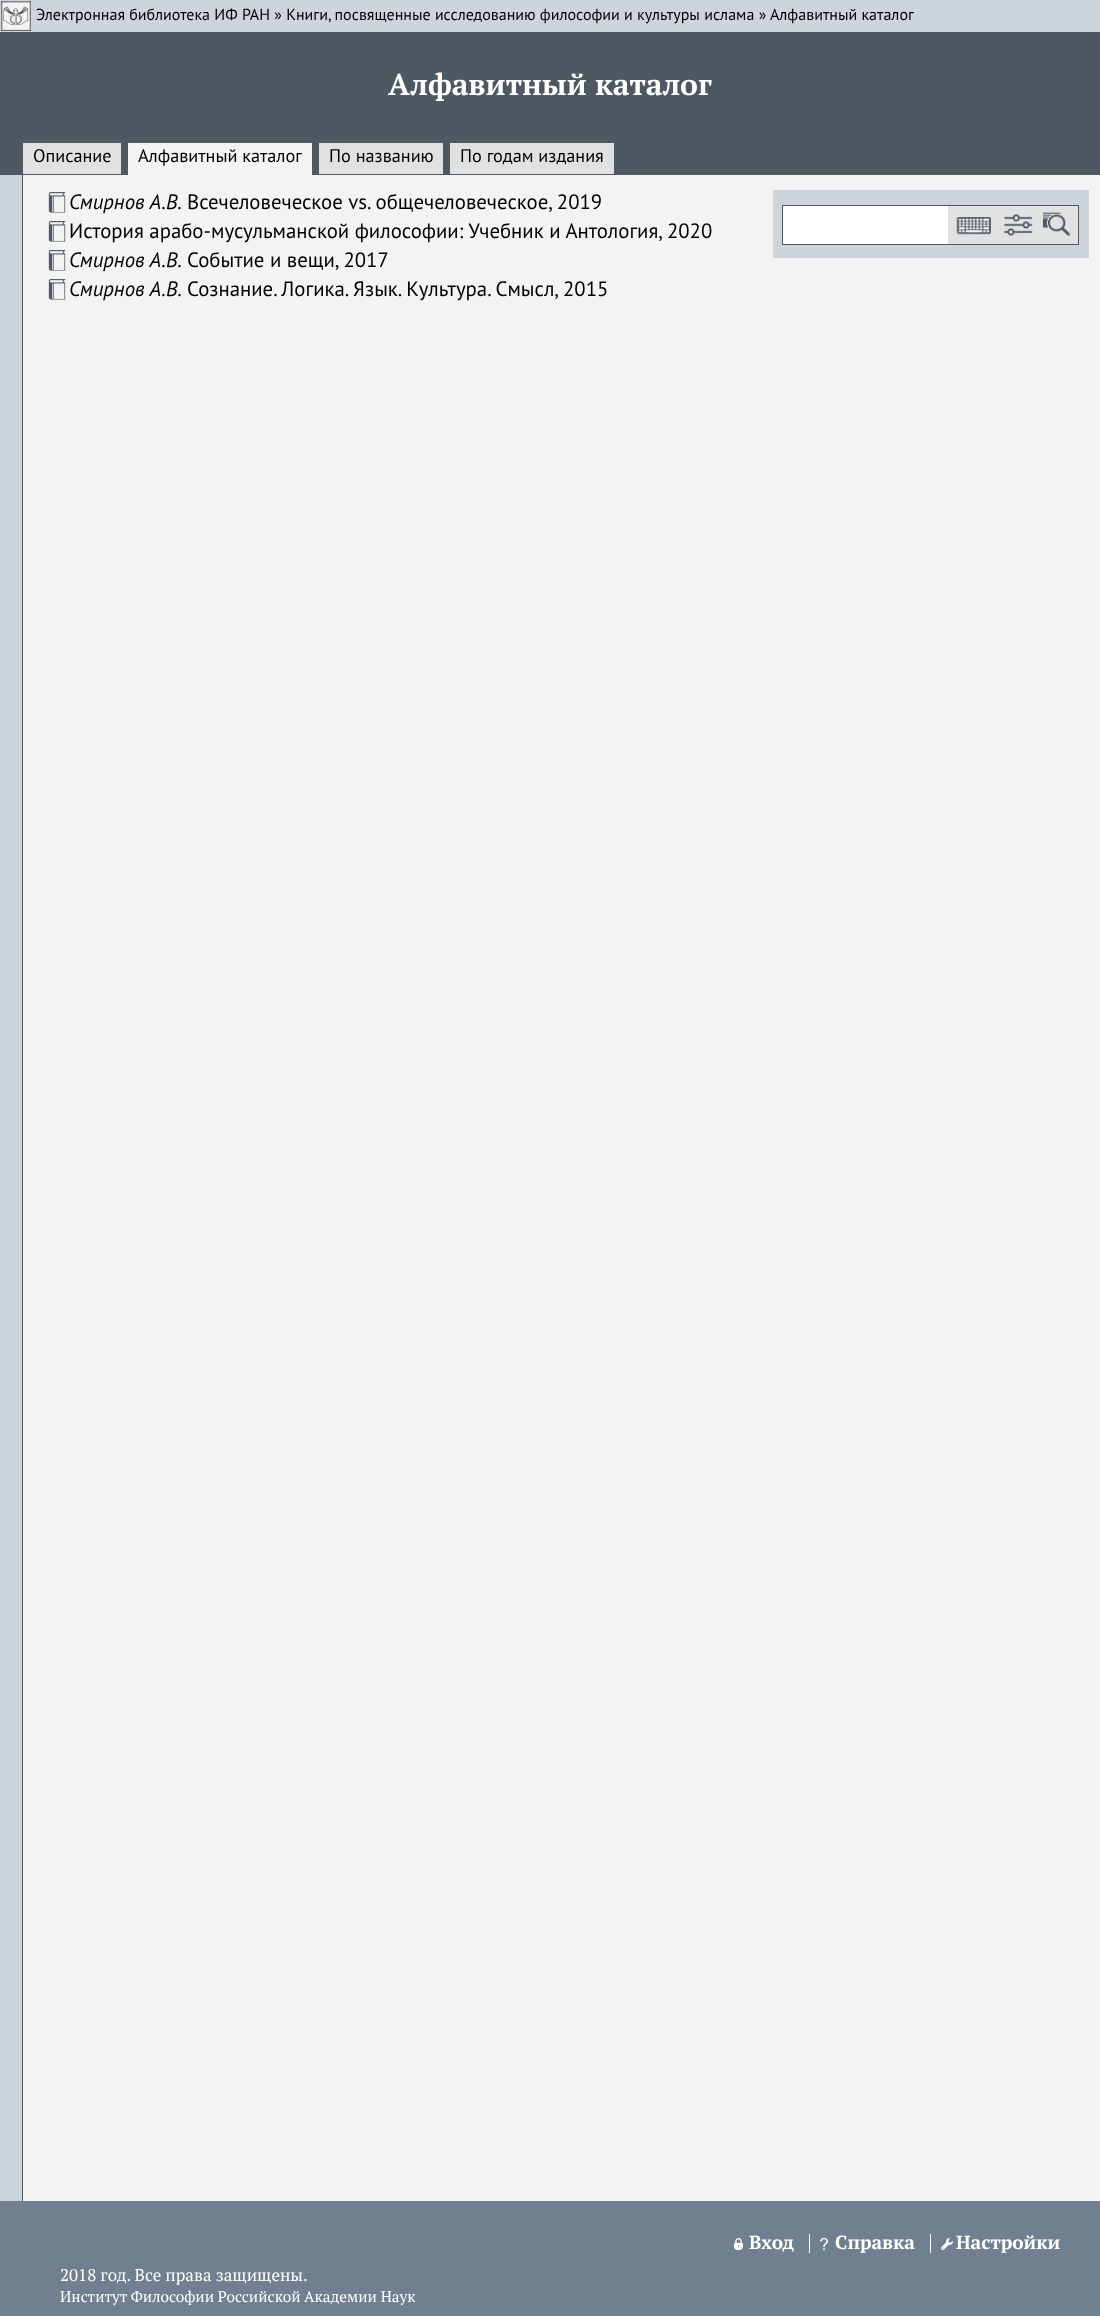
(async () => {
    const canvas = document.querySelector("canvas");
    canvas.width = 1100;
    canvas.height = 2316;
    const context = canvas.getContext("2d");
    context.miterLimit = 4;
    context.fontKerning = "normal";
    function write(s, x, y, font, color) {
        context.font = font;
        context.fillStyle = color;
        context.fillText(s, x, y);
    }
    function block(x, y, w, h, color) {
        context.fillStyle = color;
        context.fillRect(x, y, w, h);
    }
    async function photo(src, x, y, w, h) {
        const img = new Image();
        img.src = src;
        await img.decode();
        context.drawImage(img, x, y, w, h);
    }

    block(0, 0, 1100, 2316, "rgb(206, 212, 219)");
    await photo("media/1.png", 1, 1, 30, 30);
    write("Электронная библиотека ИФ РАН » Книги, посвященные исследованию философии и культуры ислама » Алфавитный каталог", 36, 20, "16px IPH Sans", "rgb(0, 0, 0)");
    block(0, 32, 1100, 143, "rgb(77, 88, 99)");
    write("Алфавитный каталог", 388, 95, "bold 30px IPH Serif", "rgb(255, 255, 255)");
    block(23, 143, 98, 31, "rgb(225, 225, 225)");
    write("Описание", 33, 162, "18.25px IPH Sans", "rgb(0, 0, 0)");
    block(128, 143, 184, 32, "rgb(243, 243, 243)");
    write("Алфавитный каталог", 138, 162, "18.25px IPH Sans", "rgb(0, 0, 0)");
    block(319, 143, 124, 31, "rgb(225, 225, 225)");
    write("По названию", 329, 162, "18.25px IPH Sans", "rgb(0, 0, 0)");
    block(450, 143, 164, 31, "rgb(225, 225, 225)");
    write("По годам издания", 460, 162, "18.25px IPH Sans", "rgb(0, 0, 0)");
    block(23, 175, 1077, 2026, "rgb(243, 243, 243)");
    block(22, 175, 1, 2026, "rgb(77, 88, 99)");
    await photo("media/2.png", 48, 192, 18, 21);
    write("Смирнов А.В.", 69, 209, "italic 20.8px IPH Sans", "rgb(0, 0, 0)");
    write("Всечеловеческое vs. общечеловеческое, 2019", 187, 209, "20.8px IPH Sans", "rgb(0, 0, 0)");
    await photo("media/2.png", 48, 221, 18, 21);
    write("История арабо-мусульманской философии: Учебник и Антология, 2020", 69, 238, "20.8px IPH Sans", "rgb(0, 0, 0)");
    await photo("media/2.png", 48, 250, 18, 21);
    write("Смирнов А.В.", 69, 267, "italic 20.8px IPH Sans", "rgb(0, 0, 0)");
    write("Событие и вещи, 2017", 187, 267, "20.8px IPH Sans", "rgb(0, 0, 0)");
    await photo("media/2.png", 48, 279, 18, 21);
    write("Смирнов А.В.", 69, 296, "italic 20.8px IPH Sans", "rgb(0, 0, 0)");
    write("Сознание. Логика. Язык. Культура. Смысл, 2015", 187, 296, "20.8px IPH Sans", "rgb(0, 0, 0)");
    block(773, 190, 316, 68, "rgb(206, 212, 219)");
    block(783, 206, 165, 38, "rgb(255, 255, 255)");
    block(782, 205, 297, 1, "rgb(77, 88, 99)");
    block(782, 244, 256, 1, "rgb(77, 88, 99)");
    block(782, 205, 1, 40, "rgb(77, 88, 99)");
    block(948, 206, 130, 38, "rgb(225, 225, 225)");
    await photo("media/3.png", 956, 217, 35, 18);
    await photo("media/4.png", 1004, 214, 29, 22);
    block(1078, 205, 1, 40, "rgb(77, 88, 99)");
    block(1038, 244, 41, 1, "rgb(77, 88, 99)");
    await photo("media/5.png", 1042, 212, 29, 25);
    block(0, 2201, 1100, 115, "rgb(112, 128, 144)");
    await photo("media/6.png", 734, 2238, 9, 12);
    write("Вход", 749, 2249, "bold 19px IPH Serif", "rgb(255, 255, 255)");
    block(809, 2234, 1, 19, "rgb(255, 255, 255)");
    await photo("media/7.png", 820, 2238, 8, 12);
    write("Справка", 835, 2249, "bold 19px IPH Serif", "rgb(255, 255, 255)");
    block(930, 2234, 1, 19, "rgb(255, 255, 255)");
    await photo("media/8.png", 941, 2238, 12, 12);
    write("Настройки", 956, 2249, "bold 19px IPH Serif", "rgb(255, 255, 255)");
    write("2018 год. Все права защищены.", 60, 2281, "17px IPH Serif", "rgb(255, 255, 255)");
    write("Институт Философии Российской Академии Наук", 60, 2302, "15.3px IPH Serif", "rgb(255, 255, 255)");
})();
